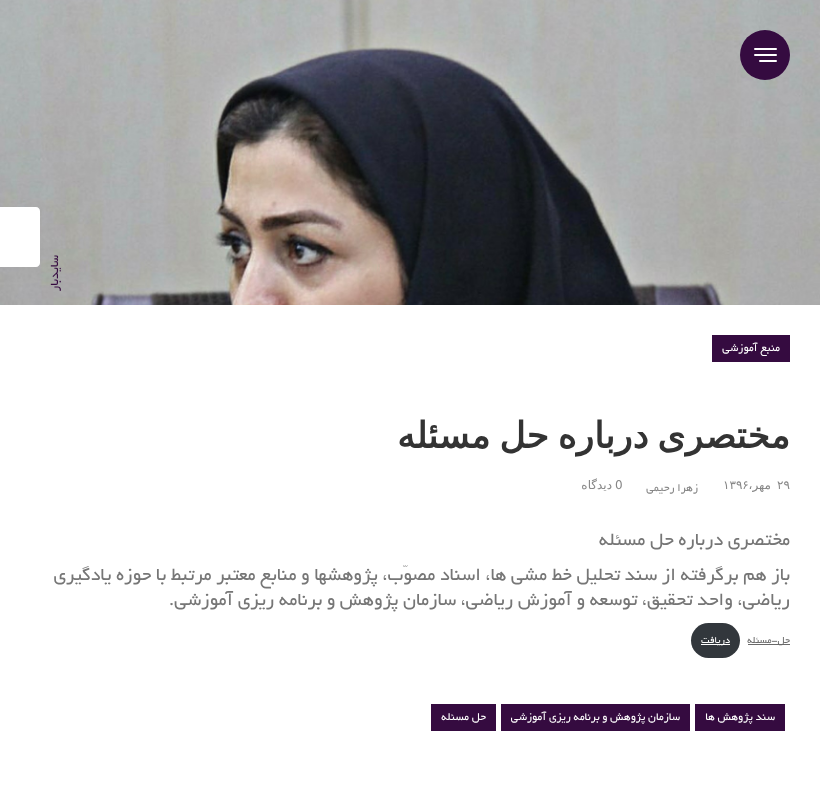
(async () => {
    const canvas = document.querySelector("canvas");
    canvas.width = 820;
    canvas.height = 790;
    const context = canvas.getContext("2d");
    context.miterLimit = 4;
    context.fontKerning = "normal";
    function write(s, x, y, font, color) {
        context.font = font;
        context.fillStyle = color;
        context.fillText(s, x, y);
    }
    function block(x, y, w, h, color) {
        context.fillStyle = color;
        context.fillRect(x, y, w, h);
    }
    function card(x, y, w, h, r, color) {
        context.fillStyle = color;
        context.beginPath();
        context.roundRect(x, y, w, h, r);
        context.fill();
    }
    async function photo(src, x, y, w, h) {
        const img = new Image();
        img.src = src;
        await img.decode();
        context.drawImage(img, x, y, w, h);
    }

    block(0, 0, 820, 790, "rgb(255, 255, 255)");
    await photo("media/1.png", 0, 0, 820, 305);
    context.fillStyle = "rgb(53, 11, 64)";
    context.beginPath();
    context.arc(765, 55, 25, 0, Math.PI * 2);
    context.fill();
    card(754, 48, 23, 2, 1, "rgb(255, 255, 255)");
    card(754, 54, 23, 2, 1, "rgb(255, 255, 255)");
    card(759, 60, 18, 2, 1, "rgb(255, 255, 255)");
    context.beginPath();
    context.moveTo(0, 267);
    context.lineTo(0, 207);
    context.lineTo(36, 207);
    context.bezierCurveTo(38, 207, 40, 209, 40, 211);
    context.lineTo(40, 263);
    context.bezierCurveTo(40, 265, 38, 267, 36, 267);
    context.closePath();
    context.fill();
    context.direction = "rtl";
    context.font = "13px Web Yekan";
    context.fillStyle = "rgb(53, 11, 64)";
    context.save();
    context.translate(58, 255);
    context.rotate(-90 * Math.PI / 180);
    context.fillText("سایدبار", 0, 0);
    context.restore();
    block(712, 335, 78, 27, "rgb(53, 11, 64)");
    write("منبع آموزشی", 780, 351, "12px Web Yekan", "rgb(255, 255, 255)");
    context.wordSpacing = "-2.5px";
    write("مختصری درباره حل مسئله", 790, 448, "bold 36px DejaVu Sans", "rgb(51, 51, 51)");
    context.wordSpacing = "0px";
    context.direction = "ltr";
    write("۲۹", 777, 489, "12px DejaVu Sans", "rgb(135, 135, 135)");
    context.direction = "rtl";
    write("مهر،", 771, 489, "12px DejaVu Sans", "rgb(135, 135, 135)");
    context.direction = "ltr";
    write("۱۳۹۶", 723, 489, "12px DejaVu Sans", "rgb(135, 135, 135)");
    context.direction = "rtl";
    write("زهرا رحیمی", 698, 491, "12px Web Yekan", "rgb(135, 135, 135)");
    context.direction = "ltr";
    write("0", 615, 489, "12px DejaVu Sans", "rgb(135, 135, 135)");
    context.direction = "rtl";
    write("دیدگاه", 612, 489, "12px DejaVu Sans", "rgb(135, 135, 135)");
    write("مختصری درباره حل مسئله", 790, 545, "20px Web Yekan", "rgb(118, 118, 118)");
    write("باز هم برگرفته از سند تحلیل خط مشی ها، اسناد مصوّب، پژوهشها و منابع معتبر مرتبط با حوزه یادگیری", 790, 580, "20px Web Yekan", "rgb(118, 118, 118)");
    write("ریاضی، واحد تحقیق، توسعه و آموزش ریاضی، سازمان پژوهش و برنامه ریزی آموزشی.", 790, 605, "20px Web Yekan", "rgb(118, 118, 118)");
    block(748, 644, 42, 1, "rgb(105, 105, 105)");
    write("حل-مسئله", 790, 643, "10.5px Web Yekan", "rgb(105, 105, 105)");
    card(691, 623, 49, 35, 17.5, "rgb(50, 55, 60)");
    block(701, 644, 29, 1, "rgb(255, 255, 255)");
    write("دریافت", 730, 643, "10.5px Web Yekan", "rgb(255, 255, 255)");
    block(695, 704, 90, 27, "rgb(53, 11, 64)");
    write("سند پژوهش ها", 775, 720, "12px Web Yekan", "rgb(255, 255, 255)");
    block(501, 704, 189, 27, "rgb(53, 11, 64)");
    write("سازمان پژوهش و برنامه ریزی آموزشی", 680, 720, "12px Web Yekan", "rgb(255, 255, 255)");
    block(431, 704, 65, 27, "rgb(53, 11, 64)");
    write("حل مسئله", 486, 720, "12px Web Yekan", "rgb(255, 255, 255)");
})();
